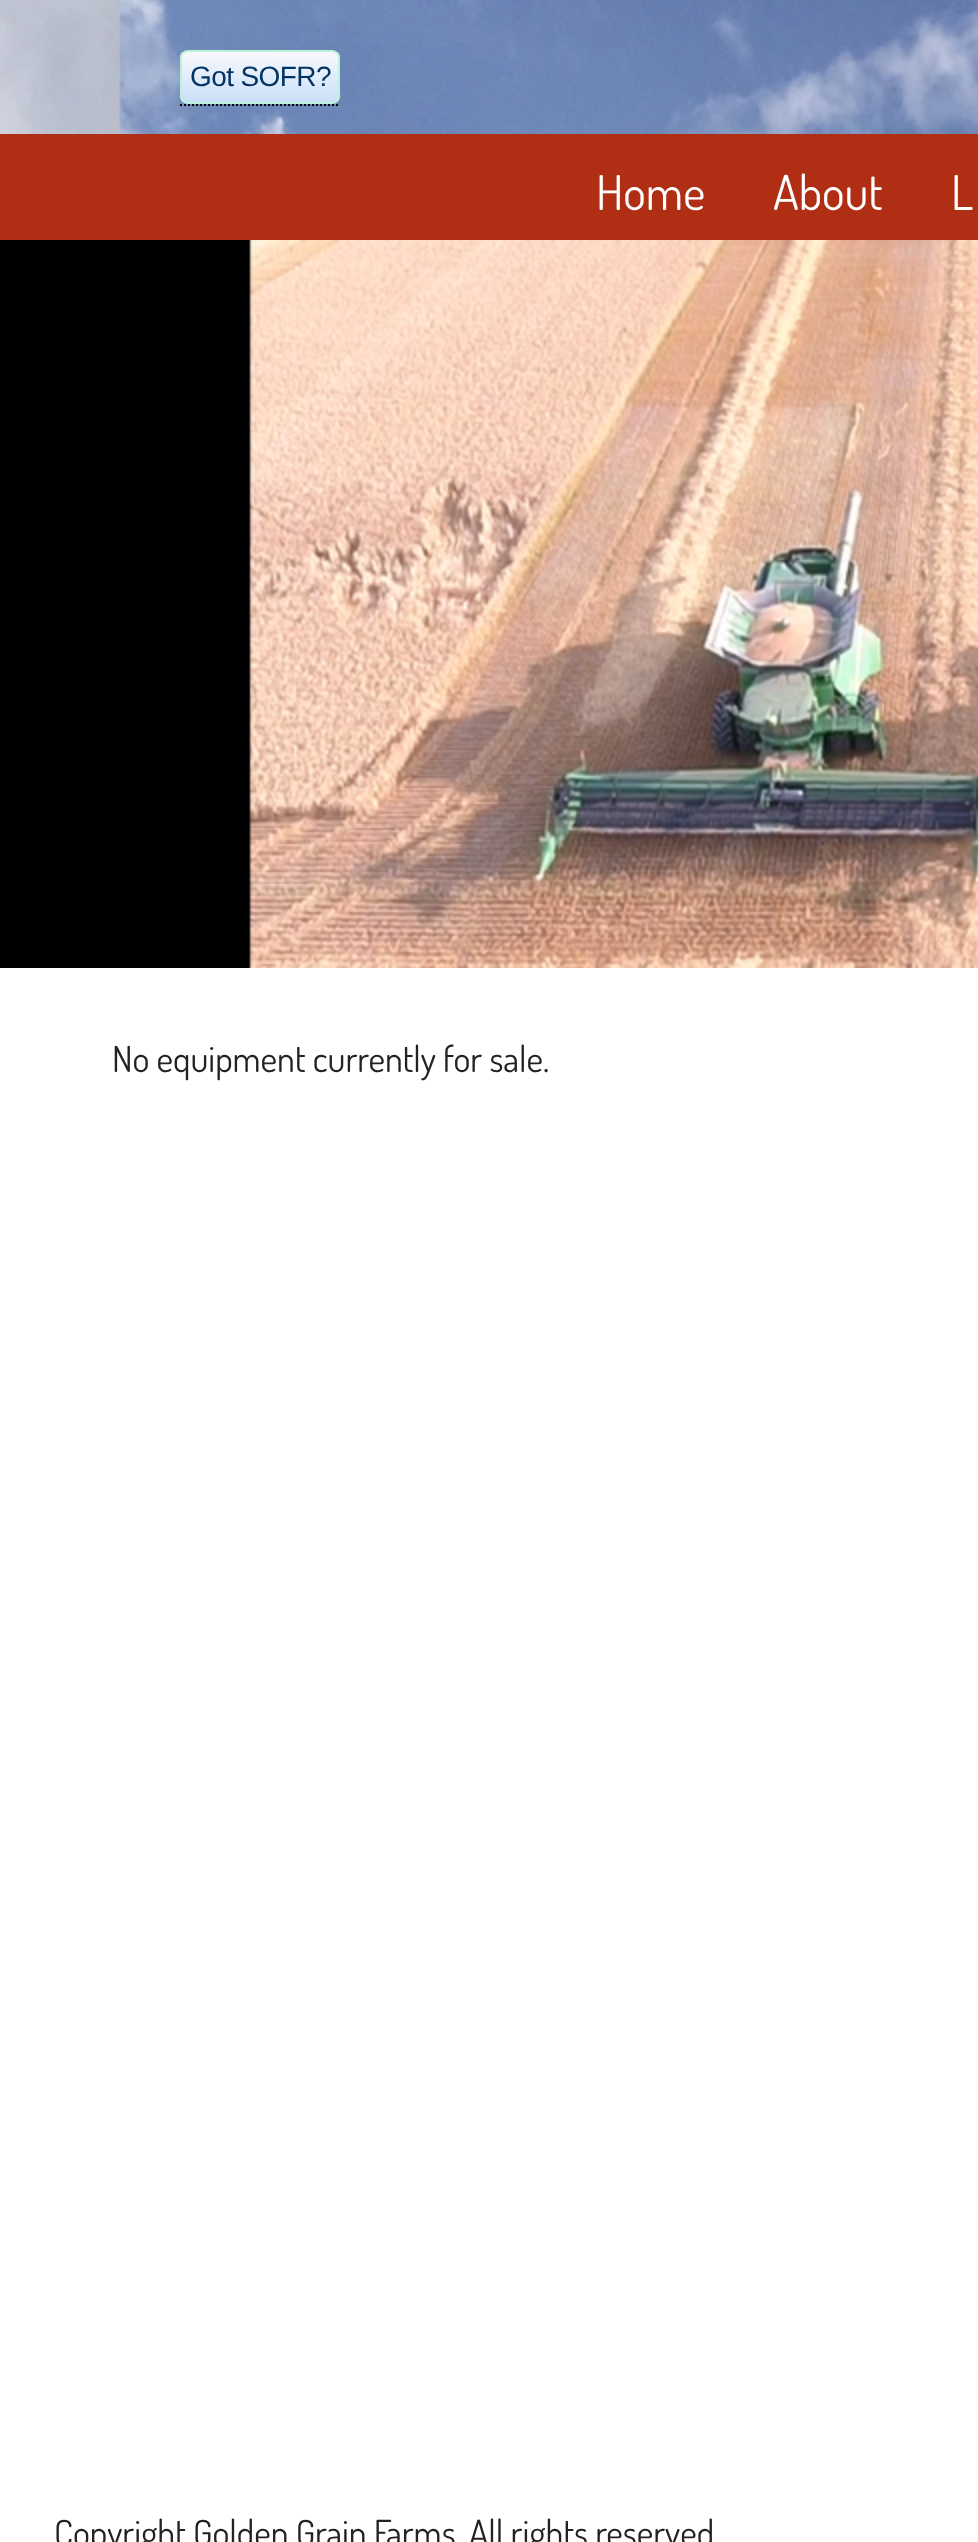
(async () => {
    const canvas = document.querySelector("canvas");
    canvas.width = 978;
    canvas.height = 2542;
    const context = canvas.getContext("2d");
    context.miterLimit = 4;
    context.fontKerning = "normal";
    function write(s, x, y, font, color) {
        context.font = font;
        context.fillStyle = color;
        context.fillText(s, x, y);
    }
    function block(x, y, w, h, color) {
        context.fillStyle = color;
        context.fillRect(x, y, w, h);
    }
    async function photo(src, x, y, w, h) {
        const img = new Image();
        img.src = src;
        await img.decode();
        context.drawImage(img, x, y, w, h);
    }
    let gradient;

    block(0, 0, 978, 2542, "rgb(255, 255, 255)");
    await photo("media/1.png", 0, 0, 978, 134);
    context.beginPath();
    context.moveTo(180, 105);
    context.lineTo(340, 105);
    context.strokeStyle = "rgb(0, 0, 0)";
    context.lineWidth = 2;
    context.setLineDash([2, 2]);
    context.stroke();
    context.save();
    context.beginPath();
    context.roundRect(180, 50, 160, 54, 8);
    context.clip();
    gradient = context.createLinearGradient(260, 52, 260, 102);
    gradient.addColorStop(0, "rgb(248, 249, 252)");
    gradient.addColorStop(1, "rgb(202, 224, 248)");
    context.fillStyle = gradient;
    context.fillRect(180, 52, 160, 50);
    context.restore();
    context.beginPath();
    context.roundRect(181, 51, 158, 52, 7);
    context.strokeStyle = "rgb(187, 243, 218)";
    context.setLineDash([]);
    context.stroke();
    context.letterSpacing = "-0.6px";
    write("Got SOFR?", 190, 86, "28px Liberation Sans", "rgb(0, 51, 102)");
    block(0, 134, 978, 106, "rgb(176, 47, 20)");
    context.letterSpacing = "0px";
    write("Home", 596, 210, "48px Dosis", "rgb(255, 255, 255)");
    write("About", 773, 210, "48px Dosis", "rgb(255, 255, 255)");
    write("L", 951, 210, "48px Dosis", "rgb(255, 255, 255)");
    await photo("media/2.png", 0, 240, 978, 728);
    write("No equipment currently for sale.", 112, 1072, "36px Dosis", "rgb(34, 34, 34)");
    write("Copyright Golden Grain Farms", 54, 2546, "36px Dosis", "rgb(34, 34, 34)");
    write("All rights reserved", 469, 2546, "36px Dosis", "rgb(34, 34, 34)");
})();
